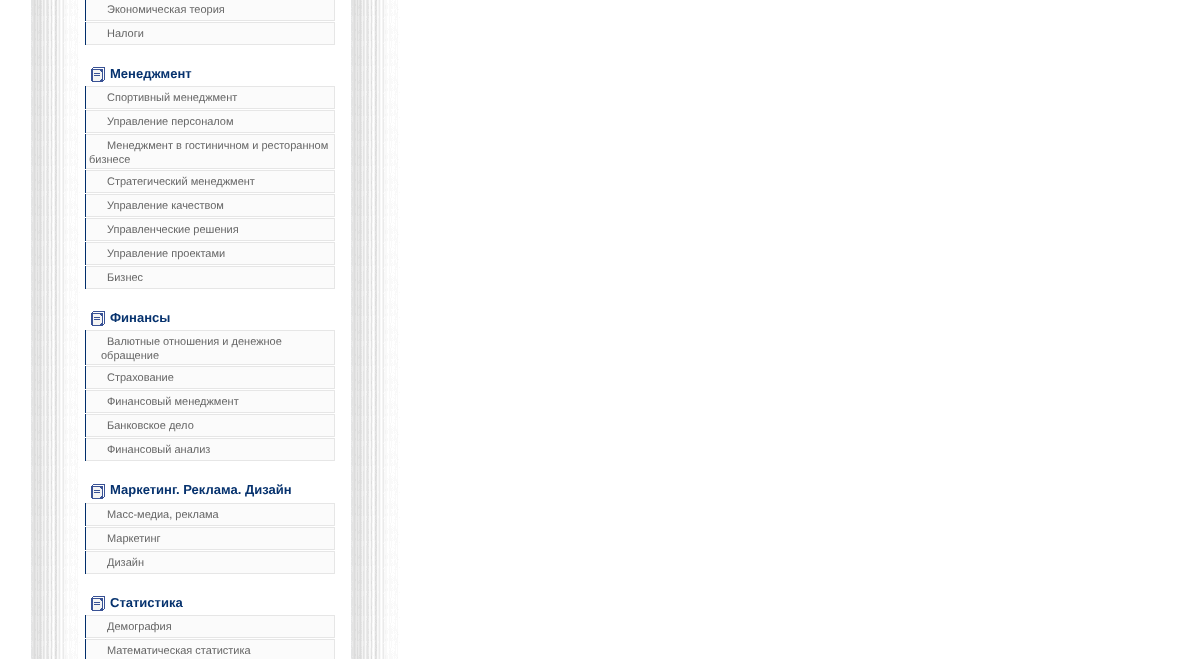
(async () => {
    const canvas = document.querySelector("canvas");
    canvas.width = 1189;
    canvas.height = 659;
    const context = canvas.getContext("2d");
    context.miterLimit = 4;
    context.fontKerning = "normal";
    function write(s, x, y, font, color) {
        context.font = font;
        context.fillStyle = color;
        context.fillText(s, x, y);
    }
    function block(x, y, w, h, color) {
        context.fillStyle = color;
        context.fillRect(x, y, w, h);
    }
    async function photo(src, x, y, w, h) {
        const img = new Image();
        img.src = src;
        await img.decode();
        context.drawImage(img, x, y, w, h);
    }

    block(0, 0, 1189, 659, "rgb(255, 255, 255)");
    await photo("media/1.png", 31, 0, 369, 659);
    block(86, 0, 248, 20, "rgb(251, 251, 251)");
    block(334, 0, 1, 21, "rgb(230, 230, 230)");
    block(85, 20, 250, 1, "rgb(230, 230, 230)");
    block(85, 0, 1, 21, "rgb(1, 46, 107)");
    write("Экономическая теория", 107, 13, "11px Liberation Sans", "rgb(102, 102, 102)");
    block(86, 23, 248, 21, "rgb(251, 251, 251)");
    block(85, 22, 250, 1, "rgb(230, 230, 230)");
    block(334, 22, 1, 23, "rgb(230, 230, 230)");
    block(85, 44, 250, 1, "rgb(230, 230, 230)");
    block(85, 22, 1, 23, "rgb(1, 46, 107)");
    write("Налоги", 107, 37, "11px Liberation Sans", "rgb(102, 102, 102)");
    await photo("media/2.png", 91, 67, 14, 15);
    write("Менеджмент", 110, 78, "bold 13px Liberation Sans", "rgb(6, 50, 110)");
    block(86, 87, 248, 21, "rgb(251, 251, 251)");
    block(85, 86, 250, 1, "rgb(230, 230, 230)");
    block(334, 86, 1, 23, "rgb(230, 230, 230)");
    block(85, 108, 250, 1, "rgb(230, 230, 230)");
    block(85, 86, 1, 23, "rgb(1, 46, 107)");
    write("Спортивный менеджмент", 107, 101, "11px Liberation Sans", "rgb(102, 102, 102)");
    block(86, 111, 248, 21, "rgb(251, 251, 251)");
    block(85, 110, 250, 1, "rgb(230, 230, 230)");
    block(334, 110, 1, 23, "rgb(230, 230, 230)");
    block(85, 132, 250, 1, "rgb(230, 230, 230)");
    block(85, 110, 1, 23, "rgb(1, 46, 107)");
    write("Управление персоналом", 107, 125, "11px Liberation Sans", "rgb(102, 102, 102)");
    block(86, 135, 248, 33, "rgb(251, 251, 251)");
    block(85, 134, 250, 1, "rgb(230, 230, 230)");
    block(334, 134, 1, 35, "rgb(230, 230, 230)");
    block(85, 168, 250, 1, "rgb(230, 230, 230)");
    block(85, 134, 1, 35, "rgb(1, 46, 107)");
    write("Менеджмент в гостиничном и ресторанном", 107, 149, "11px Liberation Sans", "rgb(102, 102, 102)");
    write("бизнесе", 89, 163, "11px Liberation Sans", "rgb(102, 102, 102)");
    block(86, 171, 248, 21, "rgb(251, 251, 251)");
    block(85, 170, 250, 1, "rgb(230, 230, 230)");
    block(334, 170, 1, 23, "rgb(230, 230, 230)");
    block(85, 192, 250, 1, "rgb(230, 230, 230)");
    block(85, 170, 1, 23, "rgb(1, 46, 107)");
    write("Стратегический менеджмент", 107, 185, "11px Liberation Sans", "rgb(102, 102, 102)");
    block(86, 195, 248, 21, "rgb(251, 251, 251)");
    block(85, 194, 250, 1, "rgb(230, 230, 230)");
    block(334, 194, 1, 23, "rgb(230, 230, 230)");
    block(85, 216, 250, 1, "rgb(230, 230, 230)");
    block(85, 194, 1, 23, "rgb(1, 46, 107)");
    write("Управление качеством", 107, 209, "11px Liberation Sans", "rgb(102, 102, 102)");
    block(86, 219, 248, 21, "rgb(251, 251, 251)");
    block(85, 218, 250, 1, "rgb(230, 230, 230)");
    block(334, 218, 1, 23, "rgb(230, 230, 230)");
    block(85, 240, 250, 1, "rgb(230, 230, 230)");
    block(85, 218, 1, 23, "rgb(1, 46, 107)");
    write("Управленческие решения", 107, 233, "11px Liberation Sans", "rgb(102, 102, 102)");
    block(86, 243, 248, 21, "rgb(251, 251, 251)");
    block(85, 242, 250, 1, "rgb(230, 230, 230)");
    block(334, 242, 1, 23, "rgb(230, 230, 230)");
    block(85, 264, 250, 1, "rgb(230, 230, 230)");
    block(85, 242, 1, 23, "rgb(1, 46, 107)");
    write("Управление проектами", 107, 257, "11px Liberation Sans", "rgb(102, 102, 102)");
    block(86, 267, 248, 21, "rgb(251, 251, 251)");
    block(85, 266, 250, 1, "rgb(230, 230, 230)");
    block(334, 266, 1, 23, "rgb(230, 230, 230)");
    block(85, 288, 250, 1, "rgb(230, 230, 230)");
    block(85, 266, 1, 23, "rgb(1, 46, 107)");
    write("Бизнес", 107, 281, "11px Liberation Sans", "rgb(102, 102, 102)");
    await photo("media/2.png", 91, 311, 14, 15);
    write("Финансы", 110, 322, "bold 13px Liberation Sans", "rgb(6, 50, 110)");
    block(86, 331, 248, 33, "rgb(251, 251, 251)");
    block(85, 330, 250, 1, "rgb(230, 230, 230)");
    block(334, 330, 1, 35, "rgb(230, 230, 230)");
    block(85, 364, 250, 1, "rgb(230, 230, 230)");
    block(85, 330, 1, 35, "rgb(1, 46, 107)");
    write("Валютные отношения и денежное", 107, 345, "11px Liberation Sans", "rgb(102, 102, 102)");
    write("обращение", 101, 359, "11px Liberation Sans", "rgb(102, 102, 102)");
    block(86, 367, 248, 21, "rgb(251, 251, 251)");
    block(85, 366, 250, 1, "rgb(230, 230, 230)");
    block(334, 366, 1, 23, "rgb(230, 230, 230)");
    block(85, 388, 250, 1, "rgb(230, 230, 230)");
    block(85, 366, 1, 23, "rgb(1, 46, 107)");
    write("Страхование", 107, 381, "11px Liberation Sans", "rgb(102, 102, 102)");
    block(86, 391, 248, 21, "rgb(251, 251, 251)");
    block(85, 390, 250, 1, "rgb(230, 230, 230)");
    block(334, 390, 1, 23, "rgb(230, 230, 230)");
    block(85, 412, 250, 1, "rgb(230, 230, 230)");
    block(85, 390, 1, 23, "rgb(1, 46, 107)");
    write("Финансовый менеджмент", 107, 405, "11px Liberation Sans", "rgb(102, 102, 102)");
    block(86, 415, 248, 21, "rgb(251, 251, 251)");
    block(85, 414, 250, 1, "rgb(230, 230, 230)");
    block(334, 414, 1, 23, "rgb(230, 230, 230)");
    block(85, 436, 250, 1, "rgb(230, 230, 230)");
    block(85, 414, 1, 23, "rgb(1, 46, 107)");
    write("Банковское дело", 107, 429, "11px Liberation Sans", "rgb(102, 102, 102)");
    block(86, 439, 248, 21, "rgb(251, 251, 251)");
    block(85, 438, 250, 1, "rgb(230, 230, 230)");
    block(334, 438, 1, 23, "rgb(230, 230, 230)");
    block(85, 460, 250, 1, "rgb(230, 230, 230)");
    block(85, 438, 1, 23, "rgb(1, 46, 107)");
    write("Финансовый анализ", 107, 453, "11px Liberation Sans", "rgb(102, 102, 102)");
    await photo("media/2.png", 91, 484, 14, 15);
    write("Маркетинг. Реклама. Дизайн", 110, 494, "bold 13px Liberation Sans", "rgb(6, 50, 110)");
    block(86, 504, 248, 21, "rgb(251, 251, 251)");
    block(85, 503, 250, 1, "rgb(230, 230, 230)");
    block(334, 503, 1, 23, "rgb(230, 230, 230)");
    block(85, 525, 250, 1, "rgb(230, 230, 230)");
    block(85, 503, 1, 23, "rgb(1, 46, 107)");
    write("Масс-медиа, реклама", 107, 518, "11px Liberation Sans", "rgb(102, 102, 102)");
    block(86, 528, 248, 21, "rgb(251, 251, 251)");
    block(85, 527, 250, 1, "rgb(230, 230, 230)");
    block(334, 527, 1, 23, "rgb(230, 230, 230)");
    block(85, 549, 250, 1, "rgb(230, 230, 230)");
    block(85, 527, 1, 23, "rgb(1, 46, 107)");
    write("Маркетинг", 107, 542, "11px Liberation Sans", "rgb(102, 102, 102)");
    block(86, 552, 248, 21, "rgb(251, 251, 251)");
    block(85, 551, 250, 1, "rgb(230, 230, 230)");
    block(334, 551, 1, 23, "rgb(230, 230, 230)");
    block(85, 573, 250, 1, "rgb(230, 230, 230)");
    block(85, 551, 1, 23, "rgb(1, 46, 107)");
    write("Дизайн", 107, 566, "11px Liberation Sans", "rgb(102, 102, 102)");
    await photo("media/2.png", 91, 596, 14, 15);
    write("Статистика", 110, 607, "bold 13px Liberation Sans", "rgb(6, 50, 110)");
    block(86, 616, 248, 21, "rgb(251, 251, 251)");
    block(85, 615, 250, 1, "rgb(230, 230, 230)");
    block(334, 615, 1, 23, "rgb(230, 230, 230)");
    block(85, 637, 250, 1, "rgb(230, 230, 230)");
    block(85, 615, 1, 23, "rgb(1, 46, 107)");
    write("Демография", 107, 630, "11px Liberation Sans", "rgb(102, 102, 102)");
    block(86, 640, 248, 19, "rgb(251, 251, 251)");
    block(85, 639, 250, 1, "rgb(230, 230, 230)");
    block(334, 639, 1, 20, "rgb(230, 230, 230)");
    block(85, 639, 1, 20, "rgb(1, 46, 107)");
    write("Математическая статистика", 107, 654, "11px Liberation Sans", "rgb(102, 102, 102)");
})();
